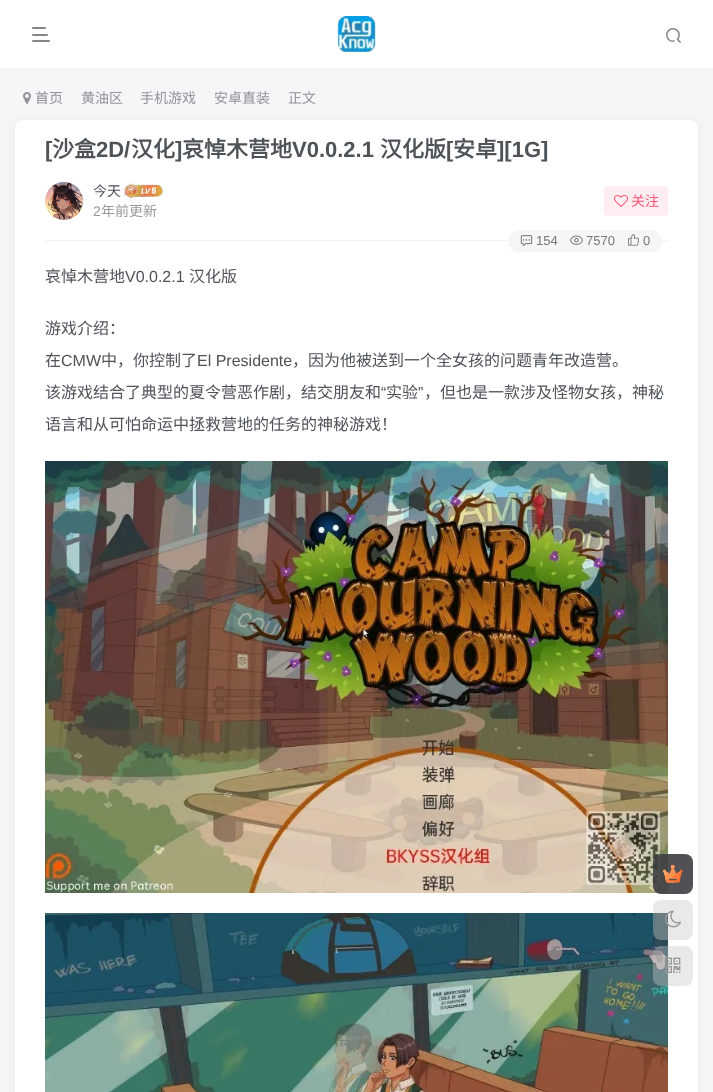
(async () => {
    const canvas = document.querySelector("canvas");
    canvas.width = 713;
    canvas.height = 1092;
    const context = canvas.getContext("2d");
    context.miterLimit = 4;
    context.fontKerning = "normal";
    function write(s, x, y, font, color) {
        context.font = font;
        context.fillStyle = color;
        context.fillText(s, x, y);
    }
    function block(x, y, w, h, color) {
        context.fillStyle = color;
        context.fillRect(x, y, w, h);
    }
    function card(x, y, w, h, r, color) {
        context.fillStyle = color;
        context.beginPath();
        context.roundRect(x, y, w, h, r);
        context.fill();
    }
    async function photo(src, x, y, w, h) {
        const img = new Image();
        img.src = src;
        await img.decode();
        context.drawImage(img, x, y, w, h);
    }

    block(0, 0, 713, 1092, "rgb(245, 246, 247)");
    block(0, 0, 713, 68, "rgb(255, 255, 255)");
    card(32, 27, 14, 2, 1, "rgb(131, 135, 138)");
    card(32, 34, 16, 2, 1, "rgb(131, 135, 138)");
    card(32, 40, 18, 2, 1, "rgb(131, 135, 138)");
    await photo("media/1.png", 337, 16, 39, 36);
    await photo("media/2.png", 666, 28, 15, 15);
    await photo("media/3.png", 23, 92, 8, 12);
    context.fillStyle = "rgba(116, 116, 116, 0.08)";
    context.filter = "blur(5px)";
    context.beginPath();
    context.roundRect(15, 120, 683, 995, 8);
    context.fill();
    context.filter = "none";
    write("首页", 35, 103, "14px Noto Sans CJK SC", "rgb(145, 148, 152)");
    write("黄油区", 81, 103, "14px Noto Sans CJK SC", "rgb(145, 148, 152)");
    write("手机游戏", 140, 103, "14px Noto Sans CJK SC", "rgb(145, 148, 152)");
    write("安卓直装", 214, 103, "14px Noto Sans CJK SC", "rgb(145, 148, 152)");
    write("正文", 288, 103, "14px Noto Sans CJK SC", "rgb(145, 148, 152)");
    card(15, 120, 683, 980, 8, "rgb(255, 255, 255)");
    write("[", 45, 157, "bold 22px Liberation Sans", "rgb(78, 83, 88)");
    write("沙盒", 52, 157, "bold 22px Noto Sans CJK SC", "rgb(78, 83, 88)");
    write("2D/", 96, 157, "bold 22px Liberation Sans", "rgb(78, 83, 88)");
    write("汉化", 131, 157, "bold 22px Noto Sans CJK SC", "rgb(78, 83, 88)");
    write("]", 175, 157, "bold 22px Liberation Sans", "rgb(78, 83, 88)");
    write("哀悼木营地", 182, 157, "bold 22px Noto Sans CJK SC", "rgb(78, 83, 88)");
    write("V0.0.2.1", 292, 157, "bold 22px Liberation Sans", "rgb(78, 83, 88)");
    write("汉化版", 380, 157, "bold 22px Noto Sans CJK SC", "rgb(78, 83, 88)");
    write("[", 446, 157, "bold 22px Liberation Sans", "rgb(78, 83, 88)");
    write("安卓", 453, 157, "bold 22px Noto Sans CJK SC", "rgb(78, 83, 88)");
    write("][1G]", 497, 157, "bold 22px Liberation Sans", "rgb(78, 83, 88)");
    await photo("media/4.png", 45, 182, 38, 38);
    write("今天", 93, 196, "14px Noto Sans CJK SC", "rgb(78, 83, 88)");
    await photo("media/5.png", 124, 183, 39, 15);
    write("2", 93, 216, "14px Liberation Sans", "rgb(153, 153, 153)");
    write("年前更新", 101, 216, "14px Noto Sans CJK SC", "rgb(153, 153, 153)");
    card(604, 186, 64, 30, 4, "rgb(255, 238, 241)");
    await photo("media/6.png", 614, 195, 14, 12);
    write("关注", 631, 206, "14px Noto Sans CJK SC", "rgb(255, 84, 115)");
    block(45, 240, 623, 1, "rgb(243, 243, 243)");
    card(508, 230, 154, 22, 11, "rgb(245, 246, 247)");
    await photo("media/7.png", 520, 235, 13, 11);
    write("154", 536, 245, "13px Liberation Sans", "rgb(119, 119, 119)");
    await photo("media/8.png", 570, 235, 13, 10);
    write("7570", 586, 245, "13px Liberation Sans", "rgb(119, 119, 119)");
    await photo("media/9.png", 628, 234, 11, 12);
    write("0", 643, 245, "13px Liberation Sans", "rgb(119, 119, 119)");
    write("哀悼木营地", 45, 282, "16px Noto Sans CJK SC", "rgb(78, 83, 88)");
    write("V0.0.2.1", 125, 282, "16px Liberation Sans", "rgb(78, 83, 88)");
    write("汉化版", 189, 282, "16px Noto Sans CJK SC", "rgb(78, 83, 88)");
    write("游戏介绍：", 45, 334, "16px Noto Sans CJK SC", "rgb(78, 83, 88)");
    write("在", 45, 366, "16px Noto Sans CJK SC", "rgb(78, 83, 88)");
    write("CMW", 61, 366, "16px Liberation Sans", "rgb(78, 83, 88)");
    write("中，你控制了", 101, 366, "16px Noto Sans CJK SC", "rgb(78, 83, 88)");
    write("El Presidente", 197, 366, "16px Liberation Sans", "rgb(78, 83, 88)");
    write("，因为他被送到一个全女孩的问题青年改造营。", 292, 366, "16px Noto Sans CJK SC", "rgb(78, 83, 88)");
    write("该游戏结合了典型的夏令营恶作剧，结交朋友和", 45, 398, "16px Noto Sans CJK SC", "rgb(78, 83, 88)");
    write("“", 381, 398, "16px Liberation Sans", "rgb(78, 83, 88)");
    write("实验", 386, 398, "16px Noto Sans CJK SC", "rgb(78, 83, 88)");
    write("”", 418, 398, "16px Liberation Sans", "rgb(78, 83, 88)");
    write("，但也是一款涉及怪物女孩，神秘", 424, 398, "16px Noto Sans CJK SC", "rgb(78, 83, 88)");
    write("语言和从可怕命运中拯救营地的任务的神秘游戏！", 45, 430, "16px Noto Sans CJK SC", "rgb(78, 83, 88)");
    await photo("media/10.png", 45, 461, 623, 432);
    await photo("media/11.png", 45, 913, 623, 179);
    card(653, 854, 40, 40, 8, "rgba(62, 62, 67, 0.9)");
    await photo("media/12.png", 663, 865, 20, 18);
    card(653, 900, 40, 40, 8, "rgba(200, 200, 200, 0.4)");
    await photo("media/13.png", 665, 910, 16, 18);
    card(653, 946, 40, 40, 8, "rgba(200, 200, 200, 0.4)");
    await photo("media/14.png", 665, 957, 16, 16);
})();
